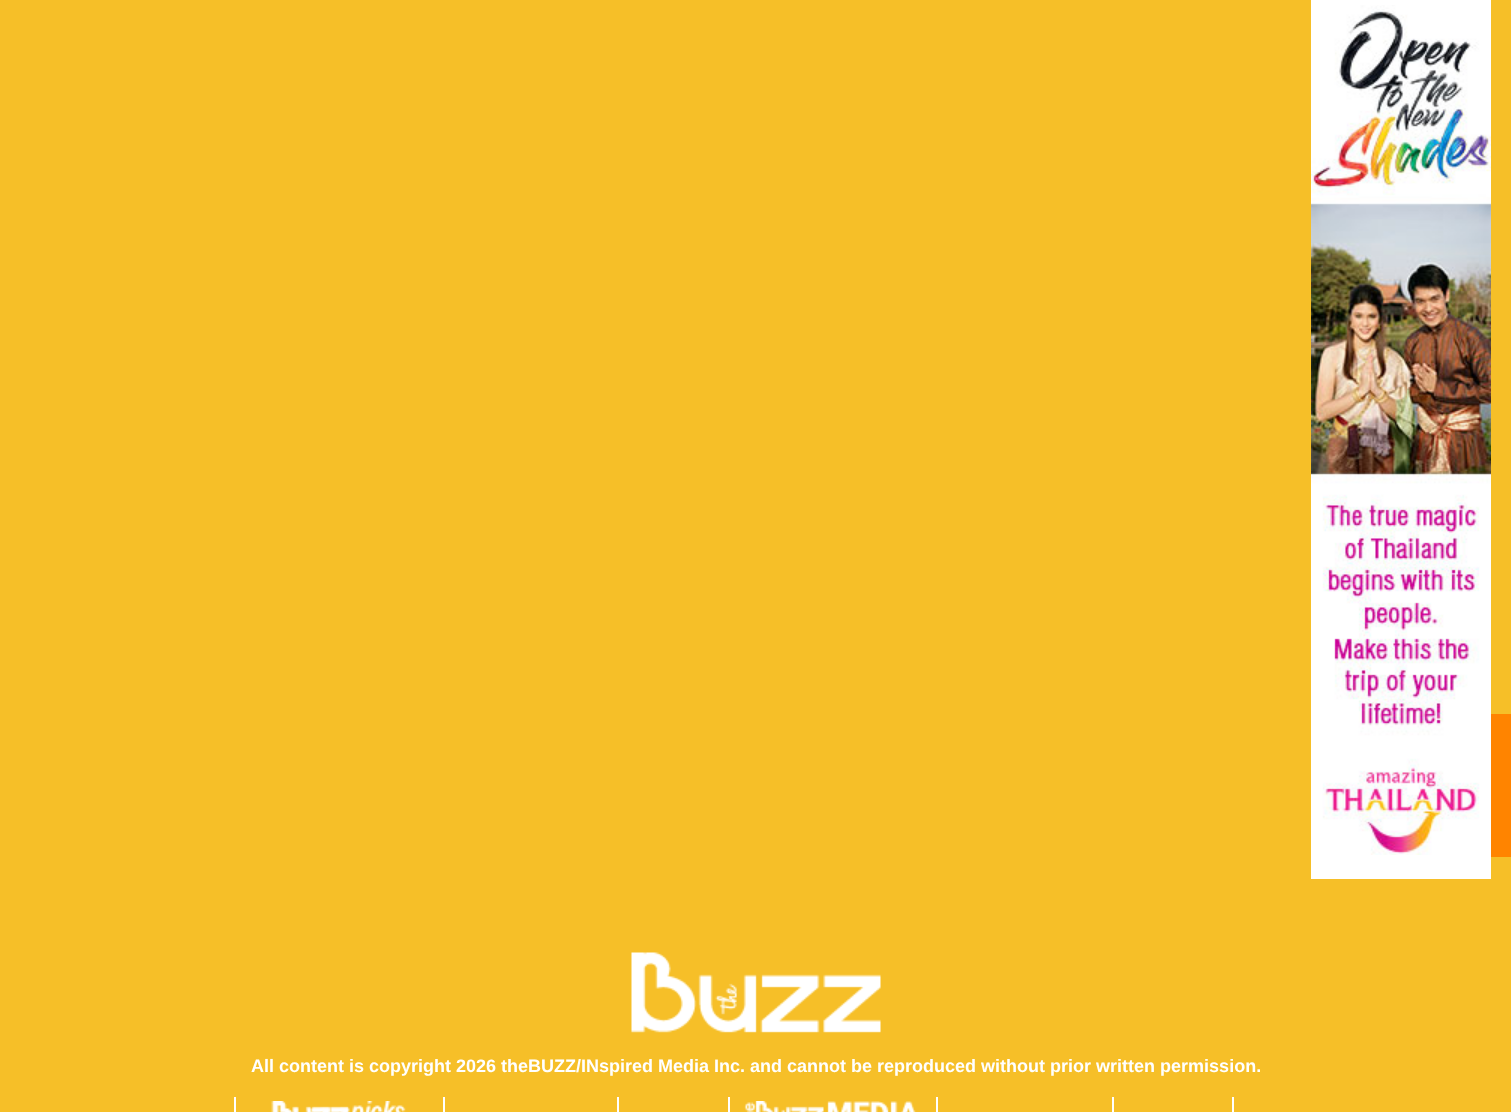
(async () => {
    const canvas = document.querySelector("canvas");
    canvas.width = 1511;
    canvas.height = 1112;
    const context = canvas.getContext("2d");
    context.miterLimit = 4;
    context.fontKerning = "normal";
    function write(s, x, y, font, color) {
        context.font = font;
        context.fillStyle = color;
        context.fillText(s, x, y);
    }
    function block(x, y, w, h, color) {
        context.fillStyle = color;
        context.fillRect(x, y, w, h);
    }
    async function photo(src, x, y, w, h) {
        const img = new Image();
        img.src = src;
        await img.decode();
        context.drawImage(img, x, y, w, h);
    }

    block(0, 0, 1511, 1112, "rgb(246, 191, 40)");
    block(1311, 0, 180, 879, "rgb(255, 255, 255)");
    await photo("media/1.png", 1311, 5, 180, 850);
    block(1491, 714, 20, 143, "rgb(255, 132, 0)");
    await photo("media/2.png", 631, 952, 250, 81);
    write("All content is copyright 2026 theBUZZ/INspired Media Inc. and cannot be reproduced without prior written permission.", 251, 1072, "bold 18px Liberation Sans", "rgb(255, 255, 255)");
    block(234, 1097, 2, 15, "rgb(255, 255, 255)");
    await photo("media/3.png", 271, 1101, 135, 11);
    block(443, 1097, 2, 15, "rgb(255, 255, 255)");
    block(617, 1097, 2, 15, "rgb(255, 255, 255)");
    block(728, 1097, 2, 15, "rgb(255, 255, 255)");
    await photo("media/4.png", 744, 1101, 172, 11);
    block(936, 1097, 2, 15, "rgb(255, 255, 255)");
    block(1112, 1097, 2, 15, "rgb(255, 255, 255)");
    block(1232, 1097, 2, 15, "rgb(255, 255, 255)");
})();
